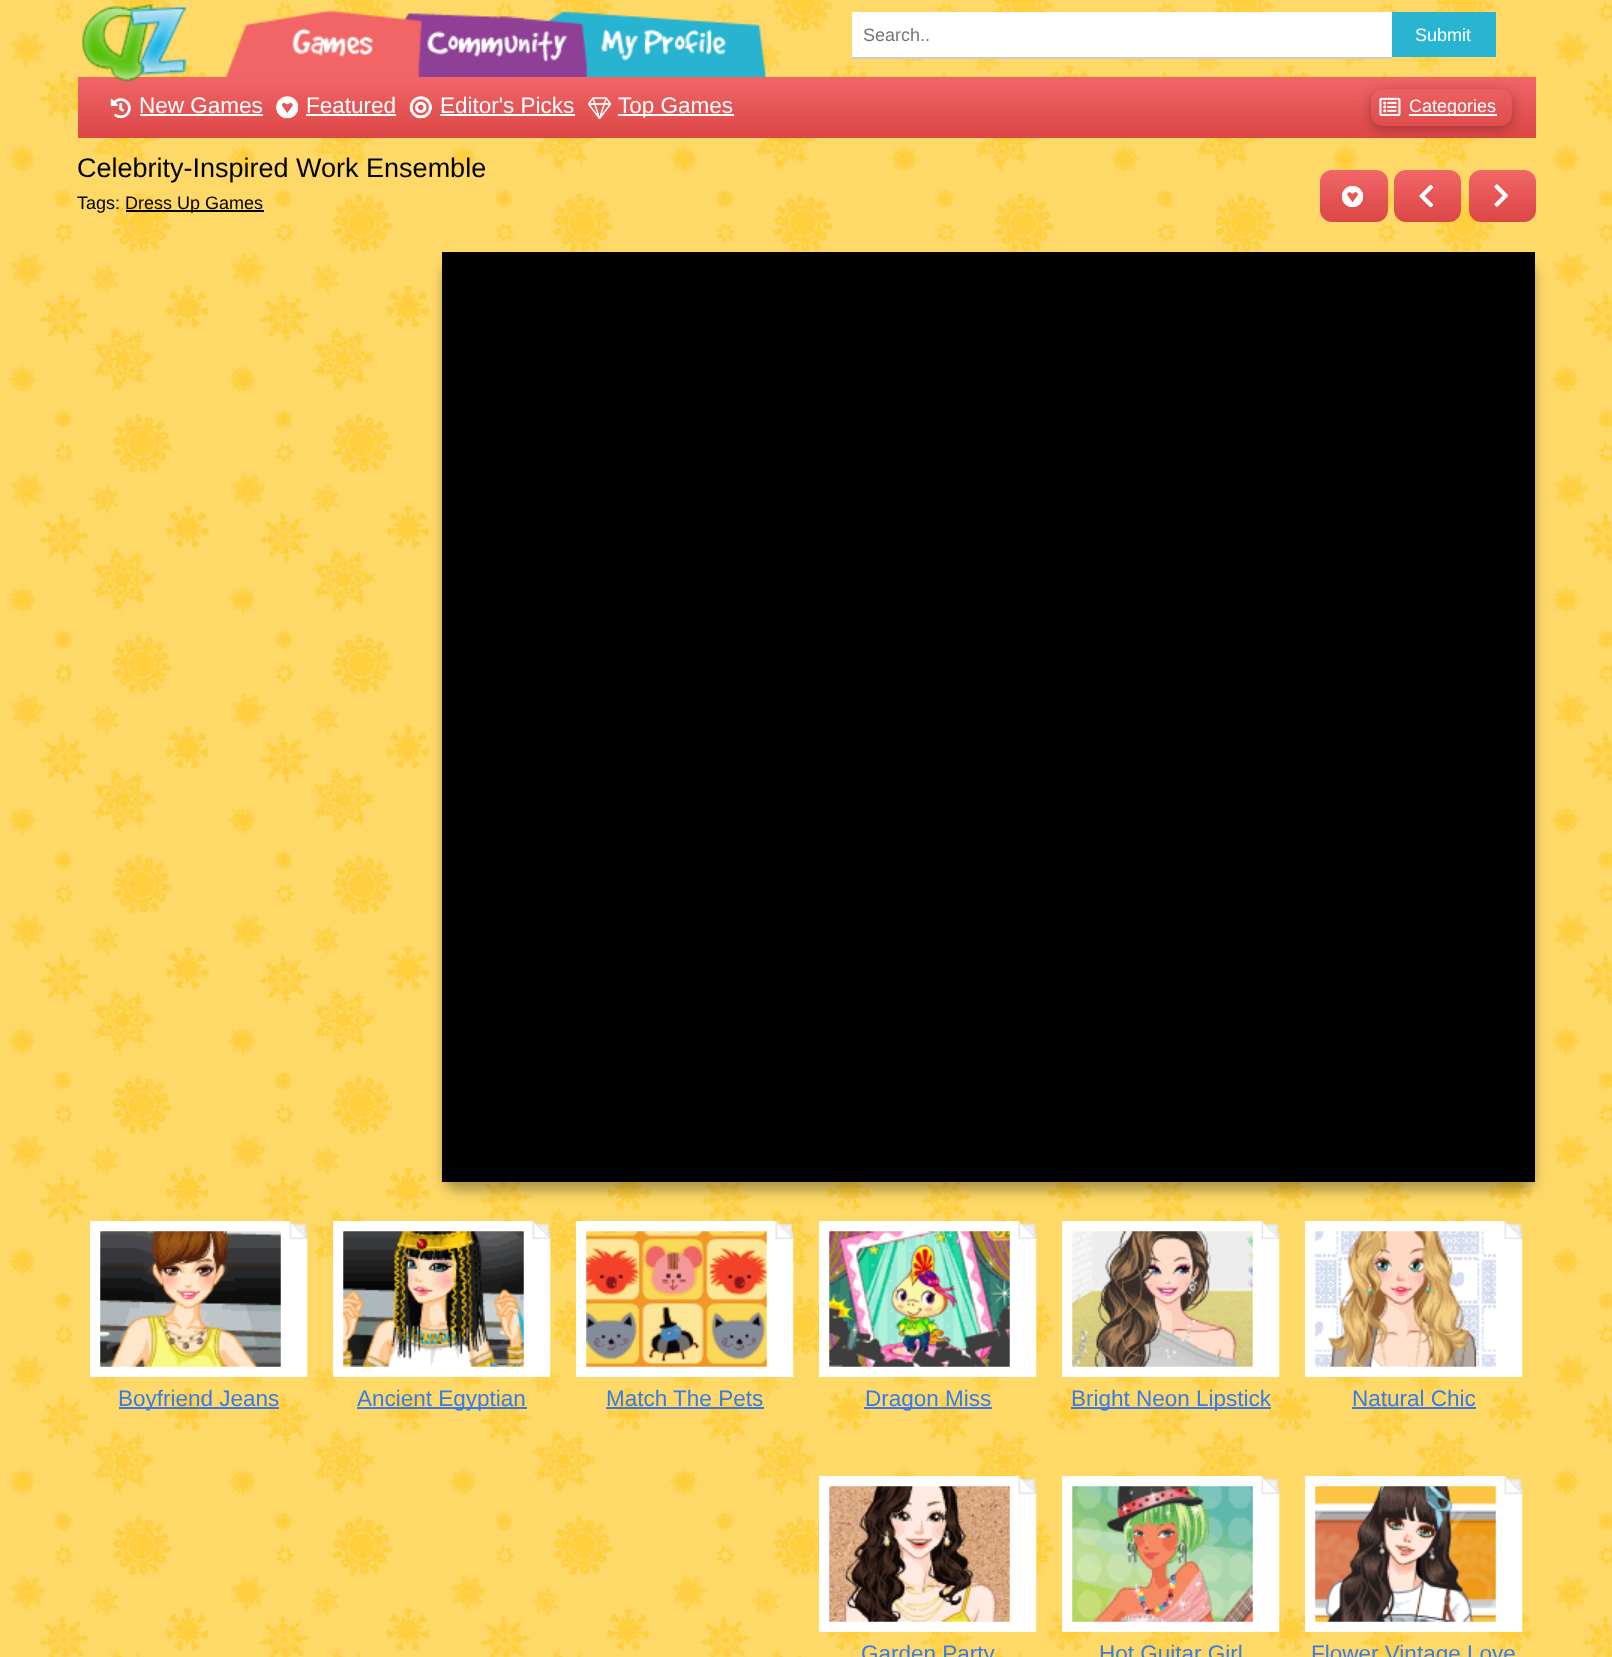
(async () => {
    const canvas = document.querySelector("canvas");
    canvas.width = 1612;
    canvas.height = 1657;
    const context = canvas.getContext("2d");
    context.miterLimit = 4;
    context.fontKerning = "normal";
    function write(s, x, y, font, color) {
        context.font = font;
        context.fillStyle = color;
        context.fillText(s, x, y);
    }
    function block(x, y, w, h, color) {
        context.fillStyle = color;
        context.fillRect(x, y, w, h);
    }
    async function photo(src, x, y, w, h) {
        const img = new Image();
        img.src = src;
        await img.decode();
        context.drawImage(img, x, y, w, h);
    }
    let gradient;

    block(0, 0, 1612, 1657, "rgb(254, 217, 104)");
    await photo("media/1.png", 7, 0, 1605, 1657);
    await photo("media/2.png", 224, 10, 543, 67);
    gradient = context.createLinearGradient(807, 76, 807, 138);
    gradient.addColorStop(0, "rgb(241, 102, 103)");
    gradient.addColorStop(1, "rgb(220, 70, 70)");
    context.fillStyle = gradient;
    context.fillRect(78, 77, 1458, 61);
    await photo("media/3.png", 82, 4, 105, 78);
    block(852, 12, 540, 45, "rgb(255, 255, 255)");
    block(852, 57, 540, 2, "rgb(204, 204, 204)");
    write("Search..", 863, 41, "18px Liberation Sans", "rgb(117, 117, 117)");
    block(1392, 12, 104, 45, "rgb(41, 180, 209)");
    write("Submit", 1415, 41, "18px Liberation Sans", "rgb(255, 255, 255)");
    await photo("media/4.png", 110, 98, 21, 21);
    write("New Games", 139, 113, "22.5px Liberation Sans", "rgb(255, 255, 255)");
    block(140, 114, 123, 2, "rgb(255, 255, 255)");
    await photo("media/5.png", 276, 96, 22, 23);
    write("Featured", 306, 113, "22.5px Liberation Sans", "rgb(255, 255, 255)");
    block(306, 114, 90, 2, "rgb(255, 255, 255)");
    await photo("media/6.png", 409, 96, 23, 23);
    write("Editor's Picks", 440, 113, "22.5px Liberation Sans", "rgb(255, 255, 255)");
    block(440, 114, 135, 2, "rgb(255, 255, 255)");
    await photo("media/7.png", 588, 97, 24, 23);
    block(618, 114, 116, 2, "rgb(255, 255, 255)");
    write("Top Games", 618, 113, "22.5px Liberation Sans", "rgb(255, 255, 255)");
    context.save();
    context.beginPath();
    context.moveTo(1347, 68);
    context.lineTo(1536, 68);
    context.lineTo(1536, 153);
    context.lineTo(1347, 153);
    context.closePath();
    context.moveTo(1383, 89);
    context.lineTo(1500, 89);
    context.bezierCurveTo(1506.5, 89, 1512, 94.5, 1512, 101);
    context.lineTo(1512, 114);
    context.bezierCurveTo(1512, 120.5, 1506.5, 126, 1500, 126);
    context.lineTo(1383, 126);
    context.bezierCurveTo(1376.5, 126, 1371, 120.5, 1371, 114);
    context.lineTo(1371, 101);
    context.bezierCurveTo(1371, 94.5, 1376.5, 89, 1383, 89);
    context.closePath();
    context.clip("evenodd");
    context.fillStyle = "rgba(0, 0, 0, 0.12)";
    context.filter = "blur(7.5px)";
    context.beginPath();
    context.roundRect(1371, 92, 141, 37, 12);
    context.fill();
    context.filter = "none";
    context.restore();
    context.save();
    context.beginPath();
    context.moveTo(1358, 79);
    context.lineTo(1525, 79);
    context.lineTo(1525, 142);
    context.lineTo(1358, 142);
    context.closePath();
    context.moveTo(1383, 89);
    context.lineTo(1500, 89);
    context.bezierCurveTo(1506.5, 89, 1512, 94.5, 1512, 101);
    context.lineTo(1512, 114);
    context.bezierCurveTo(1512, 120.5, 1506.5, 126, 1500, 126);
    context.lineTo(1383, 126);
    context.bezierCurveTo(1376.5, 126, 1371, 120.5, 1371, 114);
    context.lineTo(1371, 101);
    context.bezierCurveTo(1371, 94.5, 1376.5, 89, 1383, 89);
    context.closePath();
    context.clip("evenodd");
    context.fillStyle = "rgba(0, 0, 0, 0.16)";
    context.filter = "blur(4px)";
    context.beginPath();
    context.roundRect(1371, 92, 141, 37, 12);
    context.fill();
    context.filter = "none";
    context.restore();
    await photo("media/8.png", 1379, 97, 22, 19);
    block(1409, 114, 88, 2, "rgb(255, 255, 255)");
    write("Categories", 1409, 112, "18px Liberation Sans", "rgb(255, 255, 255)");
    write("Celebrity-Inspired Work Ensemble", 77, 177, "27px Liberation Sans", "rgb(0, 0, 0)");
    write("Tags:", 77, 209, "18px Liberation Sans", "rgb(0, 0, 0)");
    block(126, 210, 138, 2, "rgb(0, 0, 0)");
    write("Dress Up Games", 125, 209, "18px Liberation Sans", "rgb(0, 0, 0)");
    gradient = context.createLinearGradient(1354, 170, 1354, 222);
    gradient.addColorStop(0, "rgb(241, 102, 103)");
    gradient.addColorStop(1, "rgb(220, 70, 70)");
    context.fillStyle = gradient;
    context.beginPath();
    context.roundRect(1320, 170, 68, 52, 12);
    context.fill();
    await photo("media/9.png", 1342, 186, 21, 21);
    gradient = context.createLinearGradient(1427, 170, 1427, 222);
    gradient.addColorStop(0, "rgb(241, 102, 103)");
    gradient.addColorStop(1, "rgb(220, 70, 70)");
    context.fillStyle = gradient;
    context.beginPath();
    context.roundRect(1394, 170, 67, 52, 12);
    context.fill();
    await photo("media/10.png", 1419, 185, 14, 23);
    gradient = context.createLinearGradient(1502, 170, 1502, 222);
    gradient.addColorStop(0, "rgb(241, 102, 103)");
    gradient.addColorStop(1, "rgb(220, 70, 70)");
    context.fillStyle = gradient;
    context.beginPath();
    context.roundRect(1469, 170, 67, 52, 12);
    context.fill();
    await photo("media/11.png", 1494, 184, 14, 23);
    context.fillStyle = "rgba(0, 0, 0, 0.3)";
    context.filter = "blur(6px)";
    context.beginPath();
    context.roundRect(443, 261, 1092, 930, 15);
    context.fill();
    context.filter = "none";
    block(442, 252, 1093, 930, "rgb(0, 0, 0)");
    await photo("media/12.png", 90, 1221, 218, 156);
    await photo("media/13.png", 100, 1231, 181, 136);
    block(119, 1407, 160, 2, "rgb(54, 122, 238)");
    write("Boyfriend Jeans", 118, 1406, "22.5px Liberation Sans", "rgb(54, 122, 238)");
    await photo("media/14.png", 333, 1221, 218, 156);
    await photo("media/15.png", 343, 1231, 181, 136);
    block(357, 1407, 170, 2, "rgb(54, 122, 238)");
    write("Ancient Egyptian", 357, 1406, "22.5px Liberation Sans", "rgb(54, 122, 238)");
    await photo("media/16.png", 576, 1221, 218, 156);
    await photo("media/17.png", 586, 1231, 181, 136);
    write("Match The Pets", 606, 1406, "22.5px Liberation Sans", "rgb(54, 122, 238)");
    block(606, 1407, 158, 2, "rgb(54, 122, 238)");
    await photo("media/18.png", 819, 1221, 218, 156);
    await photo("media/19.png", 829, 1231, 181, 136);
    block(864, 1407, 128, 2, "rgb(54, 122, 238)");
    write("Dragon Miss", 865, 1406, "22.5px Liberation Sans", "rgb(54, 122, 238)");
    await photo("media/20.png", 1062, 1221, 218, 156);
    await photo("media/21.png", 1072, 1231, 181, 136);
    block(1071, 1407, 200, 2, "rgb(54, 122, 238)");
    write("Bright Neon Lipstick", 1071, 1406, "22.5px Liberation Sans", "rgb(54, 122, 238)");
    await photo("media/22.png", 1305, 1221, 218, 156);
    await photo("media/23.png", 1315, 1231, 181, 136);
    write("Natural Chic", 1352, 1406, "22.5px Liberation Sans", "rgb(54, 122, 238)");
    block(1352, 1407, 124, 2, "rgb(54, 122, 238)");
    await photo("media/24.png", 819, 1476, 218, 156);
    await photo("media/25.png", 829, 1486, 181, 136);
    write("Garden Party", 861, 1661, "22.5px Liberation Sans", "rgb(54, 122, 238)");
    await photo("media/26.png", 1062, 1476, 218, 156);
    await photo("media/27.png", 1072, 1486, 181, 136);
    write("Hot Guitar Girl", 1099, 1661, "22.5px Liberation Sans", "rgb(54, 122, 238)");
    await photo("media/28.png", 1305, 1476, 218, 156);
    await photo("media/29.png", 1315, 1486, 181, 136);
    write("Flower Vintage Love", 1311, 1661, "22.5px Liberation Sans", "rgb(54, 122, 238)");
})();
